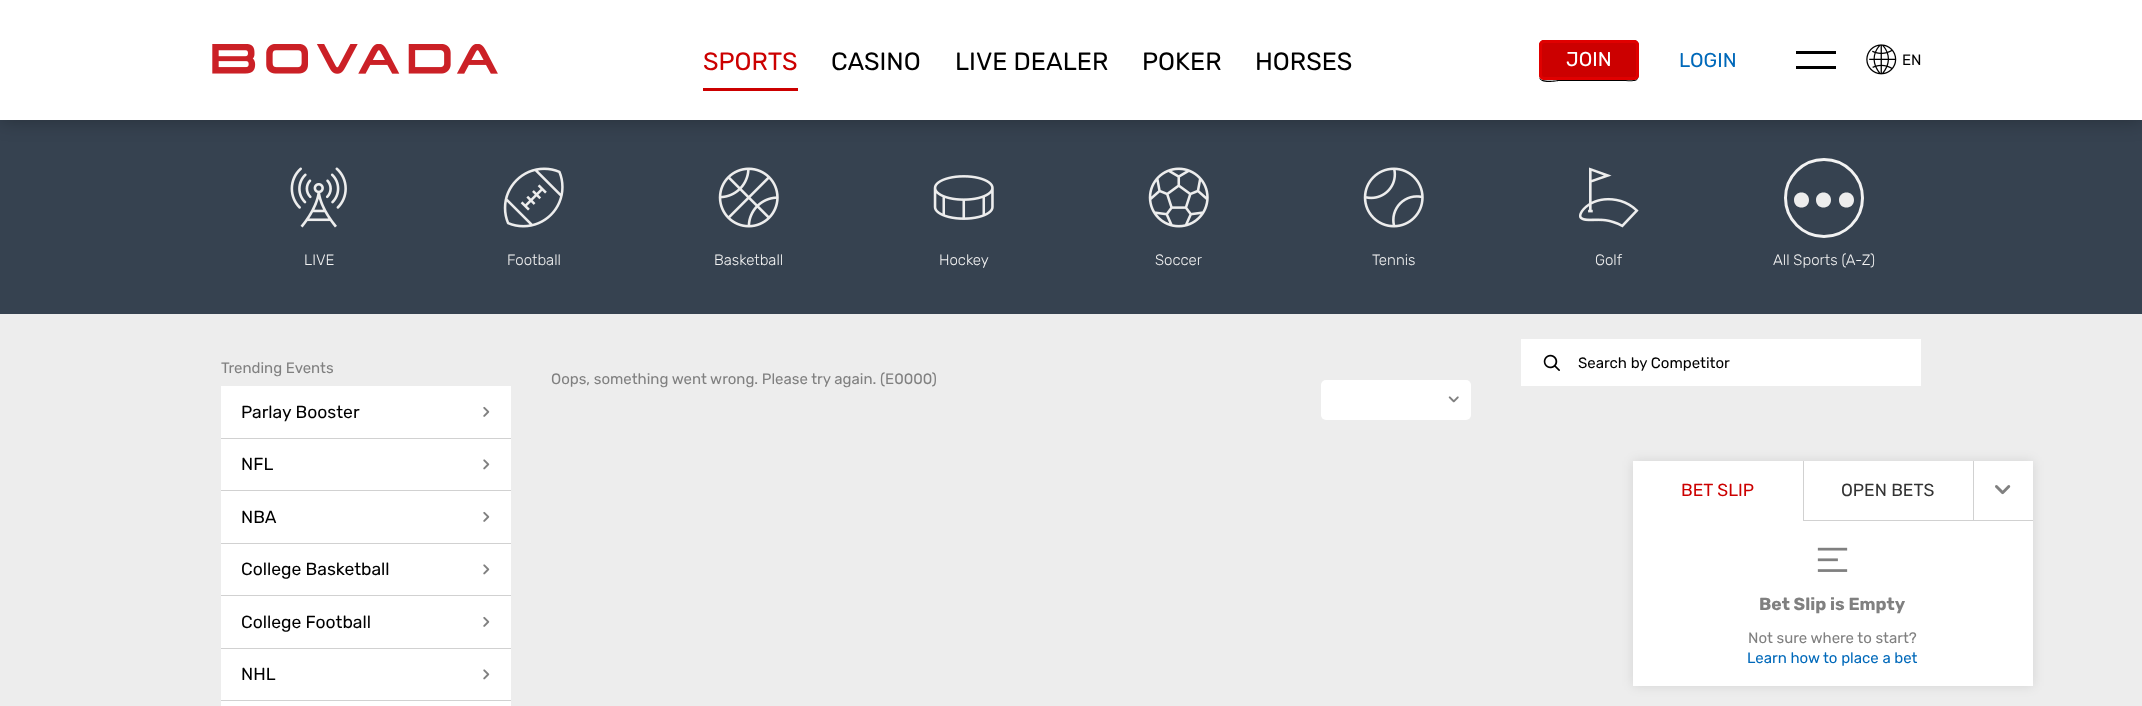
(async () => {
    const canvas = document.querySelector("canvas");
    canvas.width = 2142;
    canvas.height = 706;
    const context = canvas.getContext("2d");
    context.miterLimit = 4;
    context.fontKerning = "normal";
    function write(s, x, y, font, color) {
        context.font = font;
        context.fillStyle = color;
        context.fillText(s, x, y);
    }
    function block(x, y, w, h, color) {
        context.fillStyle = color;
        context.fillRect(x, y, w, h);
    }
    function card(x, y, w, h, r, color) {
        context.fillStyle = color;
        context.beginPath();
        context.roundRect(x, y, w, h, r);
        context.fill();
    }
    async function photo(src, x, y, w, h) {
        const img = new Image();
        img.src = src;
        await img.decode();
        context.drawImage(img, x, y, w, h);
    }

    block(0, 0, 2142, 706, "rgb(237, 237, 237)");
    block(0, 120, 2142, 194, "rgb(54, 66, 80)");
    context.fillStyle = "rgba(0, 0, 0, 0.3)";
    context.filter = "blur(10px)";
    context.beginPath();
    context.rect(0, 0, 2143, 120);
    context.fill();
    context.filter = "none";
    block(0, 0, 2142, 120, "rgb(255, 255, 255)");
    await photo("media/1.png", 212, 44, 286, 30);
    block(703, 88, 95, 3, "rgb(204, 0, 0)");
    write("SPORTS", 703, 70, "25px Rubik", "rgb(204, 0, 0)");
    write("CASINO", 831, 70, "25px Rubik", "rgb(0, 0, 0)");
    write("LIVE DEALER", 955, 70, "25px Rubik", "rgb(0, 0, 0)");
    write("POKER", 1142, 70, "25px Rubik", "rgb(0, 0, 0)");
    write("HORSES", 1255, 70, "25px Rubik", "rgb(0, 0, 0)");
    context.beginPath();
    context.moveTo(1539, 77);
    context.bezierCurveTo(1540, 85, 1557, 81, 1559, 81);
    context.lineTo(1619, 81);
    context.bezierCurveTo(1639, 81, 1639, 84, 1639, 66);
    context.lineTo(1639, 44);
    context.lineTo(1639, 65);
    context.bezierCurveTo(1639, 83, 1639, 80, 1619, 80);
    context.lineTo(1559, 80);
    context.bezierCurveTo(1557, 80, 1541, 83, 1539, 77);
    context.closePath();
    context.fill();
    card(1539, 40, 100, 40, 5, "rgb(204, 0, 0)");
    context.beginPath();
    context.roundRect(1540.5, 41.5, 97, 37, 3.5);
    context.strokeStyle = "rgb(224, 0, 0)";
    context.lineWidth = 3;
    context.stroke();
    write("JOIN", 1566, 66, "20px Rubik", "rgb(255, 255, 255)");
    write("LOGIN", 1679, 67, "20px Rubik", "rgb(0, 105, 186)");
    block(1796, 51, 40, 3, "rgb(0, 0, 0)");
    block(1796, 66, 40, 3, "rgb(0, 0, 0)");
    await photo("media/2.png", 1866, 44, 31, 31);
    write("EN", 1902, 65, "15px Rubik", "rgb(0, 0, 0)");
    await photo("media/3.png", 290, 167, 57, 61);
    write("LIVE", 304, 265, "300 15px Rubik", "rgb(242, 242, 242)");
    await photo("media/4.png", 503, 167, 61, 61);
    write("Football", 507, 265, "300 15px Rubik", "rgb(242, 242, 242)");
    await photo("media/5.png", 718, 167, 61, 61);
    write("Basketball", 714, 265, "300 15px Rubik", "rgb(242, 242, 242)");
    await photo("media/6.png", 933, 175, 61, 45);
    write("Hockey", 939, 265, "300 15px Rubik", "rgb(242, 242, 242)");
    await photo("media/7.png", 1148, 167, 61, 61);
    write("Soccer", 1155, 265, "300 15px Rubik", "rgb(242, 242, 242)");
    await photo("media/8.png", 1363, 167, 61, 61);
    write("Tennis", 1372, 265, "300 15px Rubik", "rgb(242, 242, 242)");
    await photo("media/9.png", 1579, 167, 60, 61);
    write("Golf", 1595, 265, "300 15px Rubik", "rgb(242, 242, 242)");
    context.beginPath();
    context.arc(1824, 198, 38.5, 0, Math.PI * 2);
    context.strokeStyle = "rgb(242, 242, 242)";
    context.stroke();
    context.fillStyle = "rgb(237, 237, 237)";
    context.beginPath();
    context.moveTo(1809, 200);
    context.bezierCurveTo(1809, 210, 1794, 210, 1794, 200);
    context.bezierCurveTo(1794, 190, 1809, 190, 1809, 200);
    context.closePath();
    context.moveTo(1831, 200);
    context.bezierCurveTo(1831, 210, 1816, 210, 1816, 200);
    context.bezierCurveTo(1816, 190, 1831, 190, 1831, 200);
    context.closePath();
    context.moveTo(1854, 200);
    context.bezierCurveTo(1854, 210, 1839, 210, 1839, 200);
    context.bezierCurveTo(1839, 190, 1854, 190, 1854, 200);
    context.closePath();
    context.fill();
    write("All Sports (A-Z)", 1773, 265, "300 15px Rubik", "rgb(242, 242, 242)");
    write("Trending Events", 221, 373, "15px Rubik", "rgb(128, 128, 128)");
    block(221, 386, 290, 52, "rgb(255, 255, 255)");
    block(221, 438, 290, 1, "rgb(209, 209, 209)");
    write("Parlay Booster", 241, 418, "17.5px Rubik", "rgb(0, 0, 0)");
    await photo("media/10.png", 483, 406, 7, 11);
    block(221, 439, 290, 51, "rgb(255, 255, 255)");
    block(221, 490, 290, 1, "rgb(209, 209, 209)");
    write("NFL", 241, 470, "17.5px Rubik", "rgb(0, 0, 0)");
    await photo("media/11.png", 483, 459, 7, 11);
    block(221, 491, 290, 52, "rgb(255, 255, 255)");
    block(221, 543, 290, 1, "rgb(209, 209, 209)");
    write("NBA", 241, 523, "17.5px Rubik", "rgb(0, 0, 0)");
    await photo("media/10.png", 483, 511, 7, 11);
    block(221, 544, 290, 51, "rgb(255, 255, 255)");
    block(221, 595, 290, 1, "rgb(209, 209, 209)");
    write("College Basketball", 241, 575, "17.5px Rubik", "rgb(0, 0, 0)");
    await photo("media/11.png", 483, 564, 7, 11);
    block(221, 596, 290, 52, "rgb(255, 255, 255)");
    block(221, 648, 290, 1, "rgb(209, 209, 209)");
    write("College Football", 241, 628, "17.5px Rubik", "rgb(0, 0, 0)");
    await photo("media/10.png", 483, 616, 7, 11);
    block(221, 649, 290, 51, "rgb(255, 255, 255)");
    block(221, 700, 290, 1, "rgb(209, 209, 209)");
    write("NHL", 241, 680, "17.5px Rubik", "rgb(0, 0, 0)");
    await photo("media/11.png", 483, 669, 7, 11);
    block(221, 701, 290, 5, "rgb(255, 255, 255)");
    write("Oops, something went wrong. Please try again. (E0000)", 551, 384, "15px Rubik", "rgb(128, 128, 128)");
    card(1321, 380, 150, 40, 5, "rgb(255, 255, 255)");
    await photo("media/12.png", 1448, 396, 11, 7);
    block(1521, 339, 400, 47, "rgb(255, 255, 255)");
    await photo("media/13.png", 1543, 354, 17, 17);
    write("Search by Competitor", 1578, 368, "15px Rubik", "rgb(0, 0, 0)");
    context.fillStyle = "rgba(0, 0, 0, 0.1)";
    context.filter = "blur(6px)";
    context.beginPath();
    context.rect(1633, 461, 400, 225);
    context.fill();
    context.filter = "none";
    block(1633, 461, 400, 225, "rgb(255, 255, 255)");
    write("BET SLIP", 1681, 496, "17.5px Rubik", "rgb(204, 0, 0)");
    block(1803, 520, 230, 1, "rgb(209, 209, 209)");
    block(1803, 461, 1, 60, "rgb(209, 209, 209)");
    write("OPEN BETS", 1841, 496, "17.5px Rubik", "rgb(51, 51, 51)");
    block(1973, 461, 1, 60, "rgb(209, 209, 209)");
    await photo("media/14.png", 1995, 485, 16, 10);
    await photo("media/15.png", 1817, 547, 31, 25);
    write("Bet Slip is Empty", 1759, 610, "bold 17.5px Rubik", "rgb(128, 128, 128)");
    write("Not sure where to start?", 1748, 643, "15px Rubik", "rgb(128, 128, 128)");
    write("Learn how to place a bet", 1747, 663, "15px Rubik", "rgb(0, 105, 186)");
})();
